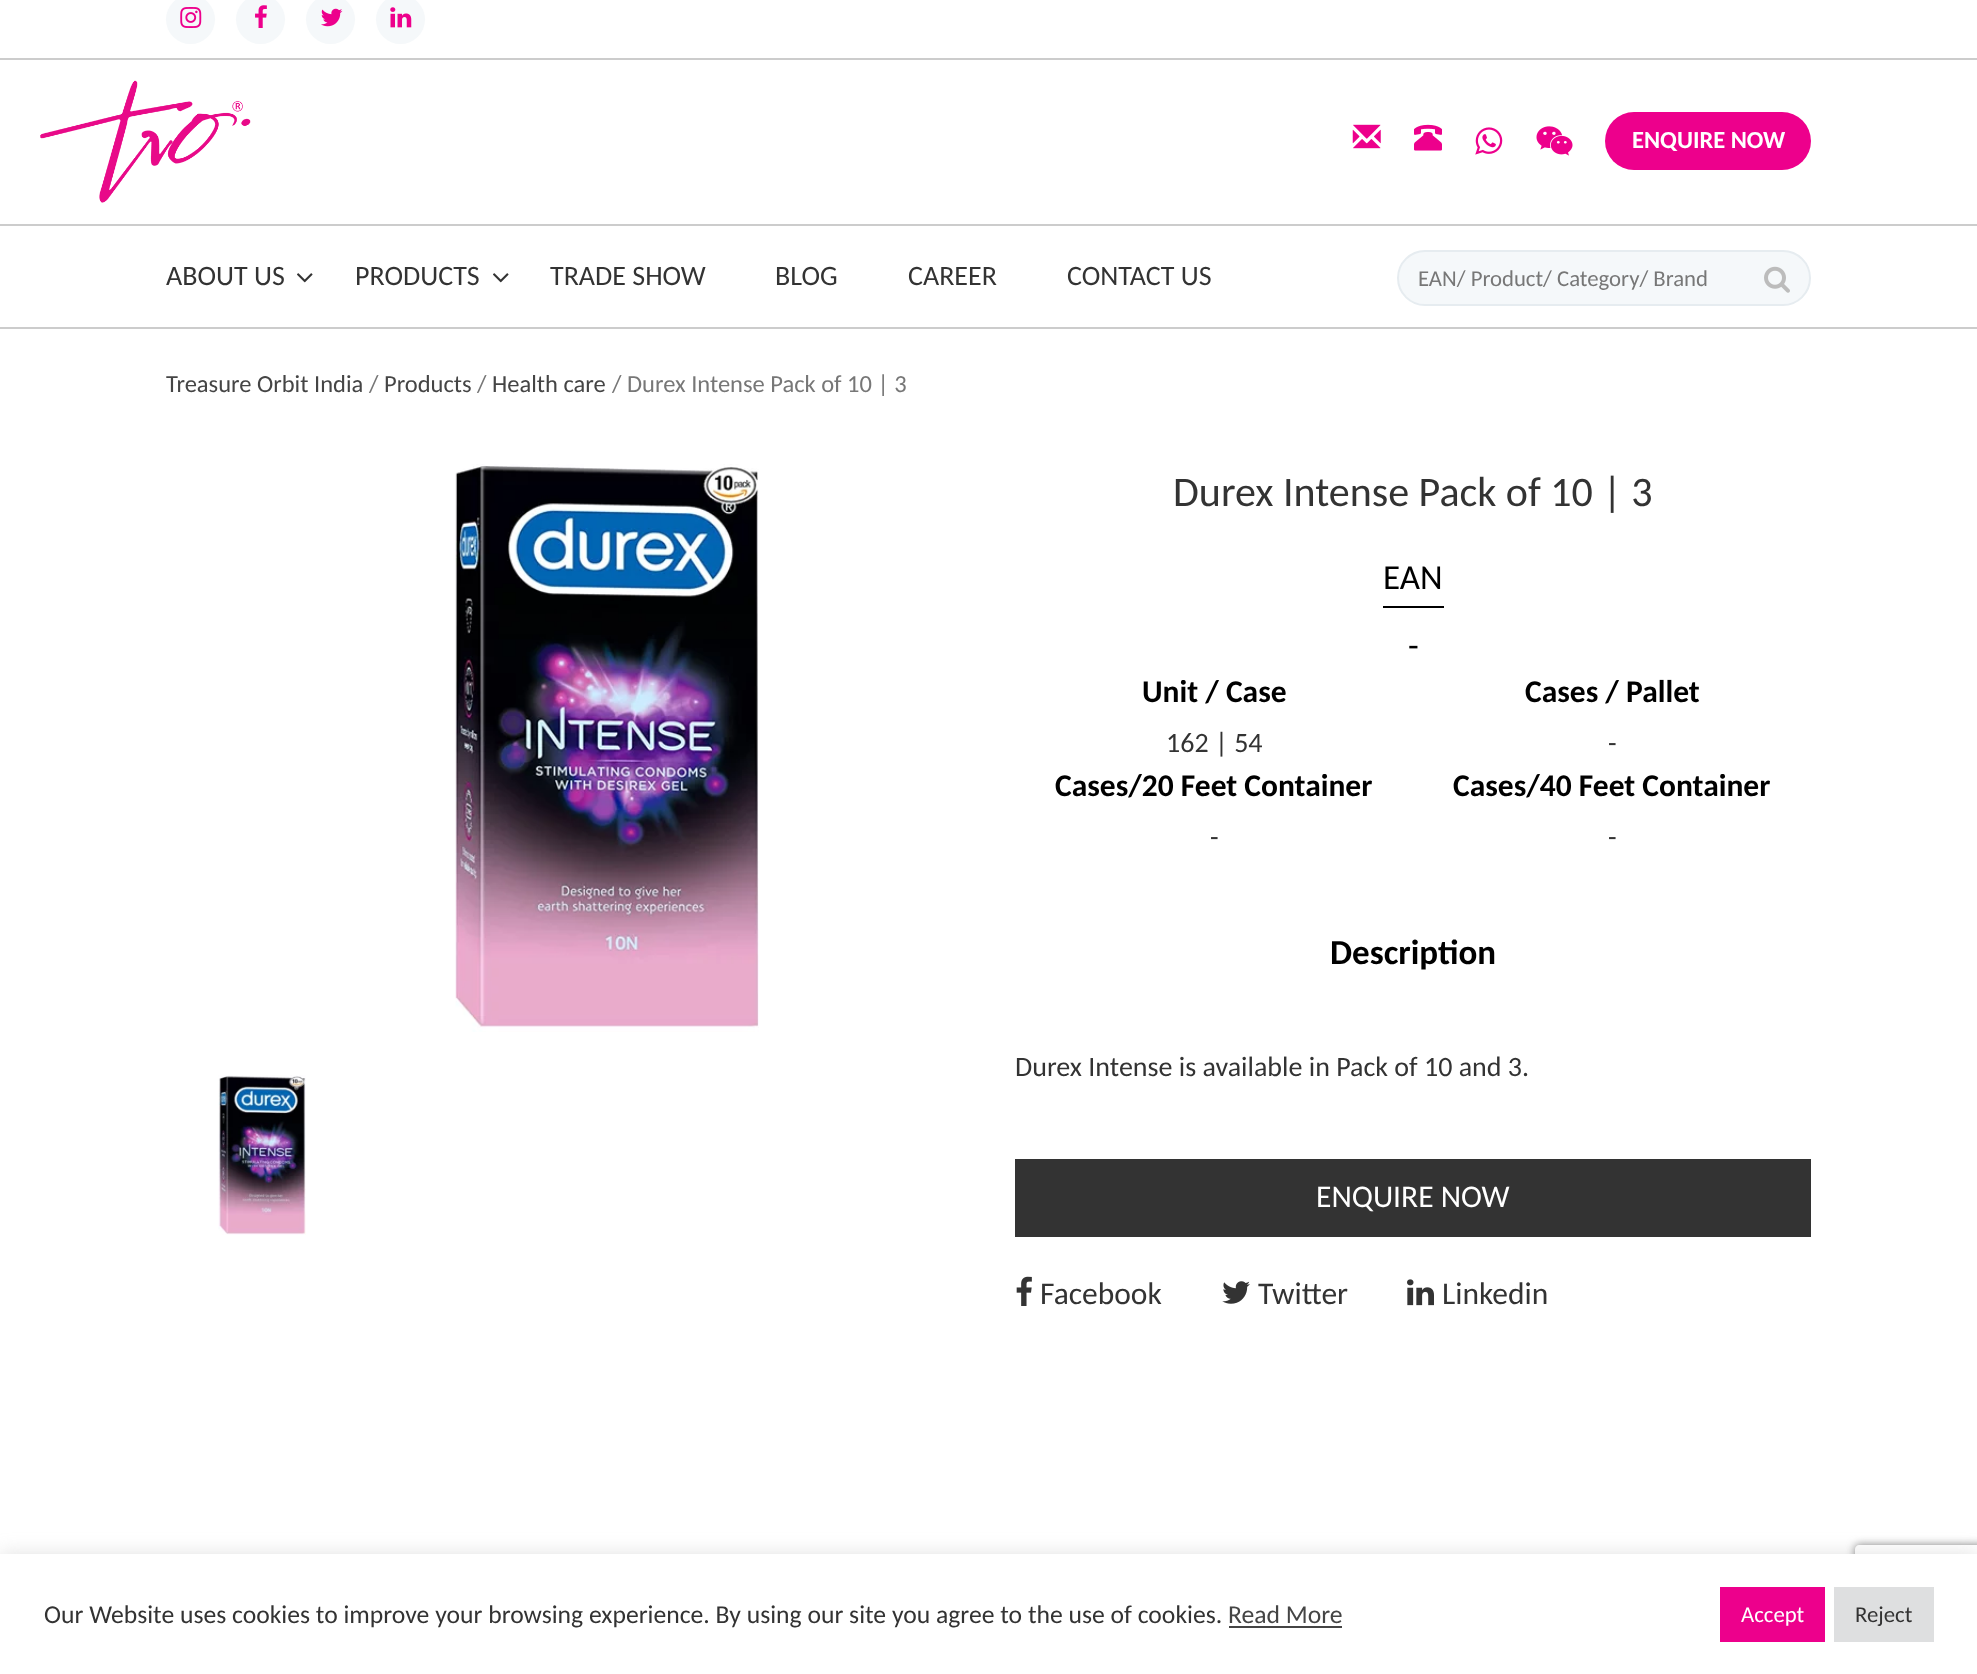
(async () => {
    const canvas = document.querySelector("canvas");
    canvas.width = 1977;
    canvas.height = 1674;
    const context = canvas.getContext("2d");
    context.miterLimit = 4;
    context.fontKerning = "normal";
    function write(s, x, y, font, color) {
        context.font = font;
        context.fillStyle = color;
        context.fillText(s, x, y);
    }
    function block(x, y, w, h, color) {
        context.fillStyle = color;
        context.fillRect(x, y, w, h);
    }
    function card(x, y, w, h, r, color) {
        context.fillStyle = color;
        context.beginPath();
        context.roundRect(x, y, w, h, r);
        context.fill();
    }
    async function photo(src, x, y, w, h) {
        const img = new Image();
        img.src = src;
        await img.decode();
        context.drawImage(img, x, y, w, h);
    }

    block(0, 0, 1977, 1674, "rgb(255, 255, 255)");
    block(0, 58, 1977, 2, "rgb(204, 204, 204)");
    context.fillStyle = "rgb(245, 248, 250)";
    context.beginPath();
    context.arc(190.5, 19.5, 24.5, 0, Math.PI * 2);
    context.fill();
    await photo("media/1.png", 180, 7, 22, 21);
    context.beginPath();
    context.arc(260.5, 19.5, 24.5, 0, Math.PI * 2);
    context.fill();
    await photo("media/2.png", 255, 5, 12, 23);
    context.beginPath();
    context.arc(330.5, 19.5, 24.5, 0, Math.PI * 2);
    context.fill();
    await photo("media/3.png", 321, 8, 22, 19);
    context.beginPath();
    context.arc(400.5, 19.5, 24.5, 0, Math.PI * 2);
    context.fill();
    await photo("media/4.png", 390, 7, 22, 21);
    await photo("media/5.png", 40, 80, 211, 123);
    await photo("media/6.png", 1352, 124, 29, 25);
    await photo("media/7.png", 1414, 124, 28, 27);
    await photo("media/8.png", 1475, 127, 28, 28);
    await photo("media/9.png", 1536, 126, 37, 30);
    card(1605, 112, 206, 58, 29, "rgb(237, 0, 140)");
    write("ENQUIRE NOW", 1632, 148, "bold 24.5px Carlito", "rgb(255, 255, 255)");
    block(0, 224, 1977, 2, "rgb(204, 204, 204)");
    block(0, 327, 1977, 2, "rgb(204, 204, 204)");
    write("ABOUT US", 166, 285, "28px Carlito", "rgb(51, 51, 51)");
    await photo("media/10.png", 297, 273, 16, 10);
    write("PRODUCTS", 355, 285, "28px Carlito", "rgb(51, 51, 51)");
    await photo("media/10.png", 493, 273, 16, 10);
    write("TRADE SHOW", 550, 285, "28px Carlito", "rgb(51, 51, 51)");
    write("BLOG", 775, 285, "28px Carlito", "rgb(51, 51, 51)");
    write("CAREER", 908, 285, "28px Carlito", "rgb(51, 51, 51)");
    write("CONTACT US", 1067, 285, "28px Carlito", "rgb(51, 51, 51)");
    context.fillStyle = "rgb(245, 248, 250)";
    context.beginPath();
    context.roundRect(1398, 251, 412, 54, 27);
    context.fill();
    context.strokeStyle = "rgb(230, 236, 240)";
    context.lineWidth = 2;
    context.stroke();
    write("EAN/ Product/ Category/ Brand", 1418, 286, "22.75px Carlito", "rgb(119, 119, 119)");
    await photo("media/11.png", 1764, 266, 26, 27);
    write("Treasure Orbit India", 166, 392, "24.5px Carlito", "rgb(69, 69, 69)");
    write("/", 369, 392, "24.5px Carlito", "rgb(119, 119, 119)");
    write("Products", 384, 392, "24.5px Carlito", "rgb(69, 69, 69)");
    write("/", 477, 392, "24.5px Carlito", "rgb(119, 119, 119)");
    write("Health care", 492, 392, "24.5px Carlito", "rgb(69, 69, 69)");
    write("/ Durex Intense Pack of 10 | 3", 612, 392, "24.5px Carlito", "rgb(119, 119, 119)");
    await photo("media/12.png", 455, 464, 304, 568);
    await photo("media/13.png", 218, 1075, 88, 160);
    write("Durex Intense Pack of 10 | 3", 1173, 506, "42px Carlito", "rgb(51, 51, 51)");
    write("EAN", 1383, 589, "35px Carlito", "rgb(0, 0, 0)");
    block(1383, 606, 61, 2, "rgb(0, 0, 0)");
    write("-", 1408, 657, "35px Carlito", "rgb(0, 0, 0)");
    write("Unit / Case", 1142, 702, "bold 31.5px Carlito", "rgb(0, 0, 0)");
    write("162 | 54", 1166, 752, "28px Carlito", "rgb(51, 51, 51)");
    write("Cases / Pallet", 1525, 702, "bold 31.5px Carlito", "rgb(0, 0, 0)");
    write("-", 1608, 752, "28px Carlito", "rgb(51, 51, 51)");
    write("Cases/20 Feet Container", 1055, 796, "bold 31.5px Carlito", "rgb(0, 0, 0)");
    write("-", 1210, 846, "28px Carlito", "rgb(51, 51, 51)");
    write("Cases/40 Feet Container", 1453, 796, "bold 31.5px Carlito", "rgb(0, 0, 0)");
    write("-", 1608, 846, "28px Carlito", "rgb(51, 51, 51)");
    write("Description", 1330, 964, "bold 35px Carlito", "rgb(0, 0, 0)");
    write("Durex Intense is available in Pack of 10 and 3.", 1015, 1076, "28px Carlito", "rgb(51, 51, 51)");
    block(1015, 1159, 796, 78, "rgb(51, 51, 51)");
    write("ENQUIRE NOW", 1316, 1207, "31.5px Carlito", "rgb(255, 255, 255)");
    await photo("media/14.png", 1016, 1276, 16, 30);
    write("Facebook", 1040, 1304, "31.5px Carlito", "rgb(51, 51, 51)");
    await photo("media/15.png", 1222, 1281, 28, 23);
    write("Twitter", 1258, 1304, "31.5px Carlito", "rgb(51, 51, 51)");
    await photo("media/16.png", 1407, 1279, 27, 27);
    write("Linkedin", 1442, 1304, "31.5px Carlito", "rgb(51, 51, 51)");
    context.save();
    context.beginPath();
    context.moveTo(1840, 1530);
    context.lineTo(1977, 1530);
    context.lineTo(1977, 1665);
    context.lineTo(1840, 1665);
    context.closePath();
    context.moveTo(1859, 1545);
    context.lineTo(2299, 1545);
    context.bezierCurveTo(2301, 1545, 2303, 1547, 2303, 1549);
    context.lineTo(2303, 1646);
    context.bezierCurveTo(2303, 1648, 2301, 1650, 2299, 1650);
    context.lineTo(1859, 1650);
    context.bezierCurveTo(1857, 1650, 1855, 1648, 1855, 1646);
    context.lineTo(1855, 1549);
    context.bezierCurveTo(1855, 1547, 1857, 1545, 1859, 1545);
    context.closePath();
    context.clip("evenodd");
    context.fillStyle = "rgb(128, 128, 128)";
    context.filter = "blur(4.5px)";
    context.beginPath();
    context.roundRect(1855, 1545, 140, 105, 4);
    context.fill();
    context.filter = "none";
    context.restore();
    context.fillStyle = "rgba(172, 171, 171, 0.3)";
    context.filter = "blur(9px)";
    context.beginPath();
    context.rect(0, 1552, 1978, 121);
    context.fill();
    context.filter = "none";
    block(0, 1554, 1977, 120, "rgb(255, 255, 255)");
    write("Our Website uses cookies to improve your browsing experience. By using our site you agree to the use of cookies.", 44, 1623, "25.65px Carlito", "rgb(51, 51, 51)");
    write("Read More", 1228, 1623, "25.65px Carlito", "rgb(69, 69, 69)");
    block(1229, 1626, 113, 2, "rgb(68, 68, 68)");
    block(1720, 1587, 105, 55, "rgb(237, 0, 140)");
    write("Accept", 1741, 1622, "22.75px Carlito", "rgb(255, 255, 255)");
    block(1834, 1587, 100, 55, "rgb(222, 223, 224)");
    write("Reject", 1855, 1622, "22.75px Carlito", "rgb(51, 51, 51)");
})();
